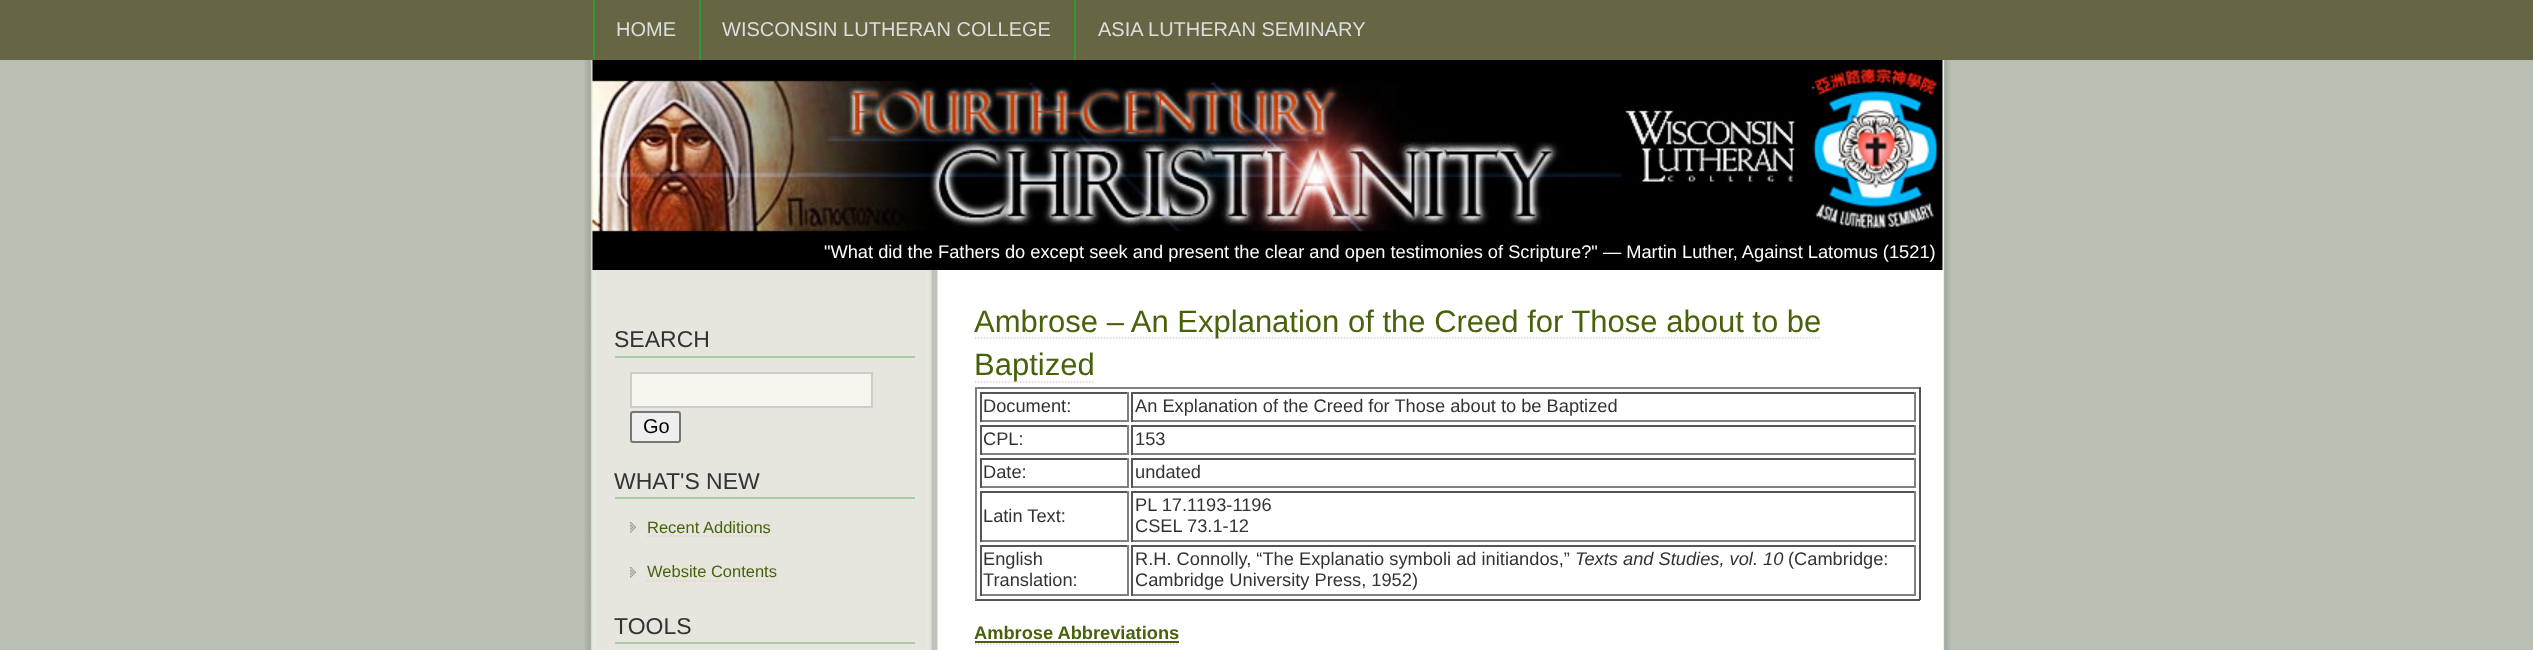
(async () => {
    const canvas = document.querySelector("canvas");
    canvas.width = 2533;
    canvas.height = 650;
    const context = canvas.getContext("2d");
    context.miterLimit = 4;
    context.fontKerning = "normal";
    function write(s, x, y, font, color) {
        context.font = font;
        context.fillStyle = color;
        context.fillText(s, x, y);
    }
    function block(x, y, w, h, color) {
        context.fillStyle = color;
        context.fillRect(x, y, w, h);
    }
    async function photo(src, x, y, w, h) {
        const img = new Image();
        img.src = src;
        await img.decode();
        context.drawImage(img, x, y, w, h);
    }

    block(0, 0, 2533, 650, "rgb(184, 192, 179)");
    await photo("media/1.png", 584, 60, 1367, 590);
    block(0, 0, 2533, 60, "rgb(102, 102, 68)");
    block(593, 0, 2, 60, "rgb(51, 153, 51)");
    write("HOME", 616, 36, "20px Liberation Sans", "rgb(221, 221, 221)");
    block(699, 0, 2, 60, "rgb(51, 153, 51)");
    write("WISCONSIN LUTHERAN COLLEGE", 722, 36, "20px Liberation Sans", "rgb(221, 221, 221)");
    block(1074, 0, 2, 60, "rgb(51, 153, 51)");
    write("ASIA LUTHERAN SEMINARY", 1098, 36, "20px Liberation Sans", "rgb(221, 221, 221)");
    await photo("media/2.png", 592, 60, 1351, 210);
    write("\"What did the Fathers do except seek and present the clear and open testimonies of Scripture?\" — Martin Luther, Against Latomus (1521)", 824, 258, "18.25px Liberation Sans", "rgb(255, 255, 255)");
    block(615, 356, 300, 2, "rgb(170, 204, 170)");
    write("SEARCH", 614, 347, "23px Liberation Sans", "rgb(51, 51, 51)");
    context.fillStyle = "rgb(246, 246, 239)";
    context.beginPath();
    context.rect(631, 373, 241, 34);
    context.fill();
    context.strokeStyle = "rgb(204, 204, 204)";
    context.lineWidth = 2;
    context.stroke();
    context.fillStyle = "rgb(239, 239, 239)";
    context.beginPath();
    context.roundRect(631, 412, 49, 30, 2);
    context.fill();
    context.strokeStyle = "rgb(118, 118, 118)";
    context.stroke();
    write("Go", 643, 433, "20px Liberation Sans", "rgb(0, 0, 0)");
    block(615, 497, 300, 2, "rgb(170, 204, 170)");
    write("WHAT'S NEW", 614, 489, "23px Liberation Sans", "rgb(51, 51, 51)");
    await photo("media/3.png", 630, 522, 6, 11);
    write("Recent Additions", 647, 533, "16.5px Liberation Sans", "rgb(71, 98, 11)");
    context.beginPath();
    context.moveTo(646.5, 536);
    context.lineTo(769.5, 536);
    context.strokeStyle = "rgb(238, 204, 204)";
    context.lineWidth = 1.5;
    context.setLineDash([1.5, 1.5]);
    context.stroke();
    await photo("media/3.png", 630, 567, 6, 11);
    write("Website Contents", 647, 577, "16.5px Liberation Sans", "rgb(71, 98, 11)");
    context.beginPath();
    context.moveTo(646.5, 581);
    context.lineTo(777, 581);
    context.stroke();
    block(615, 642, 300, 2, "rgb(170, 204, 170)");
    write("TOOLS", 614, 634, "23px Liberation Sans", "rgb(51, 51, 51)");
    context.beginPath();
    context.moveTo(975, 338);
    context.lineTo(1821, 338);
    context.stroke();
    write("Ambrose – An Explanation of the Creed for Those about to be", 974, 332, "31px Liberation Sans", "rgb(71, 98, 11)");
    context.beginPath();
    context.moveTo(975, 382);
    context.lineTo(1095, 382);
    context.stroke();
    write("Baptized", 974, 375, "31px Liberation Sans", "rgb(71, 98, 11)");
    block(975, 387, 945, 2, "rgb(128, 128, 128)");
    block(1919, 387, 2, 213, "rgb(85, 85, 85)");
    block(975, 599, 945, 2, "rgb(85, 85, 85)");
    block(975, 387, 2, 213, "rgb(128, 128, 128)");
    block(980, 392, 148, 2, "rgb(85, 85, 85)");
    block(1127, 392, 2, 30, "rgb(128, 128, 128)");
    block(980, 420, 148, 2, "rgb(128, 128, 128)");
    block(980, 392, 2, 30, "rgb(85, 85, 85)");
    write("Document:", 983, 412, "18.25px Liberation Sans", "rgb(51, 51, 51)");
    block(1131, 392, 785, 2, "rgb(85, 85, 85)");
    block(1914, 392, 2, 30, "rgb(128, 128, 128)");
    block(1131, 420, 785, 2, "rgb(128, 128, 128)");
    block(1131, 392, 2, 30, "rgb(85, 85, 85)");
    write("An Explanation of the Creed for Those about to be Baptized", 1135, 412, "18.25px Liberation Sans", "rgb(51, 51, 51)");
    block(980, 425, 148, 2, "rgb(85, 85, 85)");
    block(1127, 425, 2, 30, "rgb(128, 128, 128)");
    block(980, 453, 148, 2, "rgb(128, 128, 128)");
    block(980, 425, 2, 30, "rgb(85, 85, 85)");
    write("CPL:", 983, 445, "18.25px Liberation Sans", "rgb(51, 51, 51)");
    block(1131, 425, 785, 2, "rgb(85, 85, 85)");
    block(1914, 425, 2, 30, "rgb(128, 128, 128)");
    block(1131, 453, 785, 2, "rgb(128, 128, 128)");
    block(1131, 425, 2, 30, "rgb(85, 85, 85)");
    write("153", 1135, 445, "18.25px Liberation Sans", "rgb(51, 51, 51)");
    block(980, 458, 148, 2, "rgb(85, 85, 85)");
    block(1127, 458, 2, 30, "rgb(128, 128, 128)");
    block(980, 486, 148, 2, "rgb(128, 128, 128)");
    block(980, 458, 2, 30, "rgb(85, 85, 85)");
    write("Date:", 983, 478, "18.25px Liberation Sans", "rgb(51, 51, 51)");
    block(1131, 458, 785, 2, "rgb(85, 85, 85)");
    block(1914, 458, 2, 30, "rgb(128, 128, 128)");
    block(1131, 486, 785, 2, "rgb(128, 128, 128)");
    block(1131, 458, 2, 30, "rgb(85, 85, 85)");
    write("undated", 1135, 478, "18.25px Liberation Sans", "rgb(51, 51, 51)");
    block(980, 491, 148, 2, "rgb(85, 85, 85)");
    block(1127, 491, 2, 51, "rgb(128, 128, 128)");
    block(980, 540, 148, 2, "rgb(128, 128, 128)");
    block(980, 491, 2, 51, "rgb(85, 85, 85)");
    write("Latin Text:", 983, 522, "18.25px Liberation Sans", "rgb(51, 51, 51)");
    block(1131, 491, 785, 2, "rgb(85, 85, 85)");
    block(1914, 491, 2, 51, "rgb(128, 128, 128)");
    block(1131, 540, 785, 2, "rgb(128, 128, 128)");
    block(1131, 491, 2, 51, "rgb(85, 85, 85)");
    write("PL 17.1193-1196", 1135, 511, "18.25px Liberation Sans", "rgb(51, 51, 51)");
    write("CSEL 73.1-12", 1135, 532, "18.25px Liberation Sans", "rgb(51, 51, 51)");
    block(980, 545, 148, 2, "rgb(85, 85, 85)");
    block(1127, 545, 2, 51, "rgb(128, 128, 128)");
    block(980, 594, 148, 2, "rgb(128, 128, 128)");
    block(980, 545, 2, 51, "rgb(85, 85, 85)");
    write("English", 983, 565, "18.25px Liberation Sans", "rgb(51, 51, 51)");
    write("Translation:", 983, 586, "18.25px Liberation Sans", "rgb(51, 51, 51)");
    block(1131, 545, 785, 2, "rgb(85, 85, 85)");
    block(1914, 545, 2, 51, "rgb(128, 128, 128)");
    block(1131, 594, 785, 2, "rgb(128, 128, 128)");
    block(1131, 545, 2, 51, "rgb(85, 85, 85)");
    write("R.H. Connolly, “The Explanatio symboli ad initiandos,”", 1135, 565, "18.25px Liberation Sans", "rgb(51, 51, 51)");
    write("Texts and Studies, vol. 10", 1575, 565, "italic 18.25px Liberation Sans", "rgb(51, 51, 51)");
    write("(Cambridge:", 1788, 565, "18.25px Liberation Sans", "rgb(51, 51, 51)");
    write("Cambridge University Press, 1952)", 1135, 586, "18.25px Liberation Sans", "rgb(51, 51, 51)");
    write("Ambrose Abbreviations", 974, 639, "bold 18.25px Liberation Sans", "rgb(71, 98, 11)");
    context.beginPath();
    context.moveTo(975, 644);
    context.lineTo(1179, 644);
    context.stroke();
    block(975, 641, 204, 2, "rgb(71, 98, 11)");
})();
